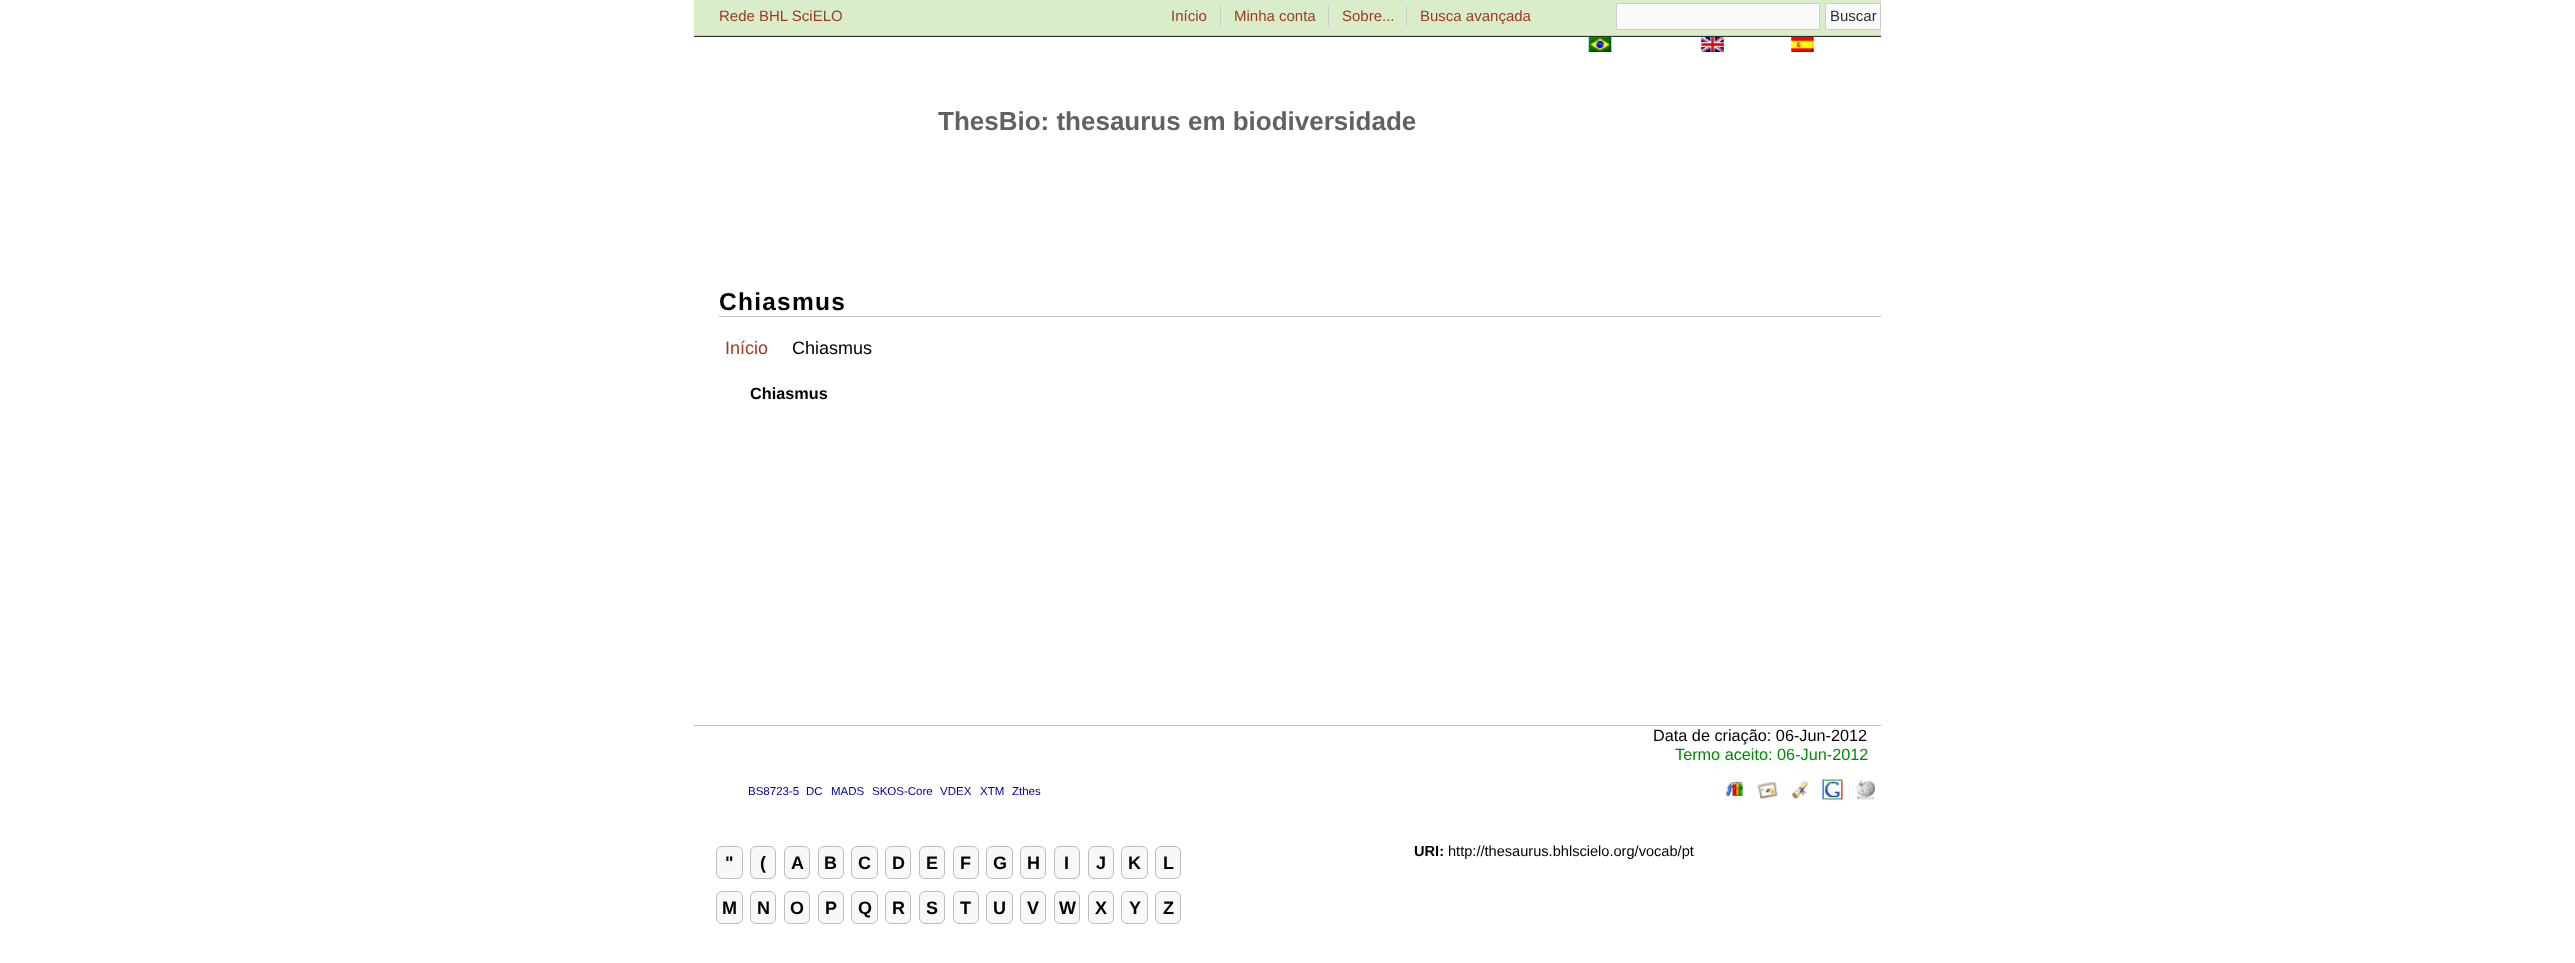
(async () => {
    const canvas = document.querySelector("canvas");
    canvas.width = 2575;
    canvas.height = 963;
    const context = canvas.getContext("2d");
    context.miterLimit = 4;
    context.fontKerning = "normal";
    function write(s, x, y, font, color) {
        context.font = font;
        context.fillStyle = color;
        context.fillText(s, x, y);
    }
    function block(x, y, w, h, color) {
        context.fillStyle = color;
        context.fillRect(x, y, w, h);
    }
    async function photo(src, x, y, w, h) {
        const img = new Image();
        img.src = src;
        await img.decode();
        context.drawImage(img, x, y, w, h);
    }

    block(0, 0, 2575, 963, "rgb(255, 255, 255)");
    block(694, 0, 1187, 35, "rgb(218, 237, 203)");
    block(694, 35, 1187, 1, "rgb(192, 209, 219)");
    write("Rede BHL SciELO", 719, 21, "15px Liberation Sans", "rgb(159, 57, 34)");
    write("Início", 1171, 21, "15px Liberation Sans", "rgb(159, 57, 34)");
    write("Minha conta", 1234, 21, "15px Liberation Sans", "rgb(159, 57, 34)");
    block(1220, 6, 1, 20, "rgb(204, 204, 204)");
    write("Sobre...", 1342, 21, "15px Liberation Sans", "rgb(159, 57, 34)");
    block(1328, 6, 1, 20, "rgb(204, 204, 204)");
    write("Busca avançada", 1420, 21, "15px Liberation Sans", "rgb(159, 57, 34)");
    block(1406, 6, 1, 20, "rgb(204, 204, 204)");
    context.fillStyle = "rgb(250, 250, 250)";
    context.beginPath();
    context.rect(1616.5, 3.5, 203, 26);
    context.fill();
    context.strokeStyle = "rgb(204, 204, 204)";
    context.stroke();
    context.beginPath();
    context.rect(1825.5, 3.5, 55, 26);
    context.fill();
    context.stroke();
    write("Buscar", 1830, 21, "15px Liberation Sans", "rgb(47, 47, 46)");
    block(694, 36, 1187, 1, "rgb(47, 47, 46)");
    await photo("media/1.png", 1588, 37, 24, 15);
    await photo("media/2.png", 1701, 37, 23, 15);
    await photo("media/3.png", 1791, 37, 23, 15);
    write("ThesBio: thesaurus em biodiversidade", 938, 130, "bold 26px Liberation Sans", "rgb(97, 97, 97)");
    block(719, 316, 1162, 1, "rgb(192, 192, 192)");
    context.letterSpacing = "1.25px";
    write("Chiasmus", 719, 310, "bold 24.5px Liberation Sans", "rgb(0, 0, 0)");
    context.letterSpacing = "0px";
    write("Início", 725, 354, "18px Liberation Sans", "rgb(159, 57, 34)");
    write("Chiasmus", 792, 354, "18px Liberation Sans", "rgb(0, 0, 0)");
    write("Chiasmus", 750, 399, "bold 16.25px Liberation Sans", "rgb(0, 0, 0)");
    block(694, 725, 1187, 1, "rgb(192, 192, 192)");
    write("Data de criação: 06-Jun-2012", 1653, 741, "16.25px Liberation Sans", "rgb(0, 0, 0)");
    write("Termo aceito: 06-Jun-2012", 1675, 760, "16.25px Liberation Sans", "rgb(0, 136, 0)");
    write("BS8723-5", 748, 795, "11.5px Liberation Sans", "rgb(0, 0, 153)");
    write("DC", 806, 795, "11.5px Liberation Sans", "rgb(0, 0, 153)");
    write("MADS", 831, 795, "11.5px Liberation Sans", "rgb(0, 0, 153)");
    write("SKOS-Core", 872, 795, "11.5px Liberation Sans", "rgb(0, 0, 153)");
    write("VDEX", 940, 795, "11.5px Liberation Sans", "rgb(0, 0, 153)");
    write("XTM", 980, 795, "11.5px Liberation Sans", "rgb(0, 0, 153)");
    write("Zthes", 1012, 795, "11.5px Liberation Sans", "rgb(0, 0, 153)");
    await photo("media/4.png", 1725, 781, 18, 16);
    await photo("media/5.png", 1757, 781, 21, 18);
    await photo("media/6.png", 1791, 780, 18, 19);
    await photo("media/7.png", 1822, 779, 21, 21);
    await photo("media/8.png", 1855, 780, 20, 20);
    write("URI:", 1414, 856, "bold 14.6px Liberation Sans", "rgb(0, 0, 0)");
    write("http://thesaurus.bhlscielo.org/vocab/pt", 1448, 856, "14.6px Liberation Sans", "rgb(0, 0, 0)");
    context.fillStyle = "rgb(248, 248, 248)";
    context.beginPath();
    context.roundRect(716.5, 846.5, 26, 32, 5.5);
    context.fill();
    context.strokeStyle = "rgb(189, 189, 189)";
    context.stroke();
    write("\"", 725, 869, "bold 18px Liberation Sans", "rgb(0, 0, 0)");
    context.fillStyle = "rgb(248, 248, 248)";
    context.beginPath();
    context.roundRect(750.5, 846.5, 25, 32, 5.5);
    context.fill();
    context.stroke();
    write("(", 760, 869, "bold 18px Liberation Sans", "rgb(0, 0, 0)");
    context.fillStyle = "rgb(248, 248, 248)";
    context.beginPath();
    context.roundRect(784.5, 846.5, 25, 32, 5.5);
    context.fill();
    context.stroke();
    write("A", 791, 869, "bold 18px Liberation Sans", "rgb(0, 0, 0)");
    context.fillStyle = "rgb(248, 248, 248)";
    context.beginPath();
    context.roundRect(818.5, 846.5, 25, 32, 5.5);
    context.fill();
    context.stroke();
    write("B", 824, 869, "bold 18px Liberation Sans", "rgb(0, 0, 0)");
    context.fillStyle = "rgb(248, 248, 248)";
    context.beginPath();
    context.roundRect(851.5, 846.5, 26, 32, 5.5);
    context.fill();
    context.stroke();
    write("C", 858, 869, "bold 18px Liberation Sans", "rgb(0, 0, 0)");
    context.fillStyle = "rgb(248, 248, 248)";
    context.beginPath();
    context.roundRect(885.5, 846.5, 25, 32, 5.5);
    context.fill();
    context.stroke();
    write("D", 892, 869, "bold 18px Liberation Sans", "rgb(0, 0, 0)");
    context.fillStyle = "rgb(248, 248, 248)";
    context.beginPath();
    context.roundRect(919.5, 846.5, 25, 32, 5.5);
    context.fill();
    context.stroke();
    write("E", 926, 869, "bold 18px Liberation Sans", "rgb(0, 0, 0)");
    context.fillStyle = "rgb(248, 248, 248)";
    context.beginPath();
    context.roundRect(953.5, 846.5, 25, 32, 5.5);
    context.fill();
    context.stroke();
    write("F", 960, 869, "bold 18px Liberation Sans", "rgb(0, 0, 0)");
    context.fillStyle = "rgb(248, 248, 248)";
    context.beginPath();
    context.roundRect(986.5, 846.5, 26, 32, 5.5);
    context.fill();
    context.stroke();
    write("G", 993, 869, "bold 18px Liberation Sans", "rgb(0, 0, 0)");
    context.fillStyle = "rgb(248, 248, 248)";
    context.beginPath();
    context.roundRect(1020.5, 846.5, 25, 32, 5.5);
    context.fill();
    context.stroke();
    write("H", 1027, 869, "bold 18px Liberation Sans", "rgb(0, 0, 0)");
    context.fillStyle = "rgb(248, 248, 248)";
    context.beginPath();
    context.roundRect(1054.5, 846.5, 25, 32, 5.5);
    context.fill();
    context.stroke();
    write("I", 1064, 869, "bold 18px Liberation Sans", "rgb(0, 0, 0)");
    context.fillStyle = "rgb(248, 248, 248)";
    context.beginPath();
    context.roundRect(1088.5, 846.5, 25, 32, 5.5);
    context.fill();
    context.stroke();
    write("J", 1096, 869, "bold 18px Liberation Sans", "rgb(0, 0, 0)");
    context.fillStyle = "rgb(248, 248, 248)";
    context.beginPath();
    context.roundRect(1121.5, 846.5, 26, 32, 5.5);
    context.fill();
    context.stroke();
    write("K", 1128, 869, "bold 18px Liberation Sans", "rgb(0, 0, 0)");
    context.fillStyle = "rgb(248, 248, 248)";
    context.beginPath();
    context.roundRect(1155.5, 846.5, 25, 32, 5.5);
    context.fill();
    context.stroke();
    write("L", 1163, 869, "bold 18px Liberation Sans", "rgb(0, 0, 0)");
    context.fillStyle = "rgb(248, 248, 248)";
    context.beginPath();
    context.roundRect(716.5, 891.5, 26, 32, 5.5);
    context.fill();
    context.stroke();
    write("M", 722, 914, "bold 18px Liberation Sans", "rgb(0, 0, 0)");
    context.fillStyle = "rgb(248, 248, 248)";
    context.beginPath();
    context.roundRect(750.5, 891.5, 25, 32, 5.5);
    context.fill();
    context.stroke();
    write("N", 757, 914, "bold 18px Liberation Sans", "rgb(0, 0, 0)");
    context.fillStyle = "rgb(248, 248, 248)";
    context.beginPath();
    context.roundRect(784.5, 891.5, 25, 32, 5.5);
    context.fill();
    context.stroke();
    write("O", 790, 914, "bold 18px Liberation Sans", "rgb(0, 0, 0)");
    context.fillStyle = "rgb(248, 248, 248)";
    context.beginPath();
    context.roundRect(818.5, 891.5, 25, 32, 5.5);
    context.fill();
    context.stroke();
    write("P", 825, 914, "bold 18px Liberation Sans", "rgb(0, 0, 0)");
    context.fillStyle = "rgb(248, 248, 248)";
    context.beginPath();
    context.roundRect(851.5, 891.5, 26, 32, 5.5);
    context.fill();
    context.stroke();
    write("Q", 858, 914, "bold 18px Liberation Sans", "rgb(0, 0, 0)");
    context.fillStyle = "rgb(248, 248, 248)";
    context.beginPath();
    context.roundRect(885.5, 891.5, 25, 32, 5.5);
    context.fill();
    context.stroke();
    write("R", 892, 914, "bold 18px Liberation Sans", "rgb(0, 0, 0)");
    context.fillStyle = "rgb(248, 248, 248)";
    context.beginPath();
    context.roundRect(919.5, 891.5, 25, 32, 5.5);
    context.fill();
    context.stroke();
    write("S", 926, 914, "bold 18px Liberation Sans", "rgb(0, 0, 0)");
    context.fillStyle = "rgb(248, 248, 248)";
    context.beginPath();
    context.roundRect(953.5, 891.5, 25, 32, 5.5);
    context.fill();
    context.stroke();
    write("T", 960, 914, "bold 18px Liberation Sans", "rgb(0, 0, 0)");
    context.fillStyle = "rgb(248, 248, 248)";
    context.beginPath();
    context.roundRect(986.5, 891.5, 26, 32, 5.5);
    context.fill();
    context.stroke();
    write("U", 993, 914, "bold 18px Liberation Sans", "rgb(0, 0, 0)");
    context.fillStyle = "rgb(248, 248, 248)";
    context.beginPath();
    context.roundRect(1020.5, 891.5, 25, 32, 5.5);
    context.fill();
    context.stroke();
    write("V", 1027, 914, "bold 18px Liberation Sans", "rgb(0, 0, 0)");
    context.fillStyle = "rgb(248, 248, 248)";
    context.beginPath();
    context.roundRect(1054.5, 891.5, 25, 32, 5.5);
    context.fill();
    context.stroke();
    write("W", 1059, 914, "bold 18px Liberation Sans", "rgb(0, 0, 0)");
    context.fillStyle = "rgb(248, 248, 248)";
    context.beginPath();
    context.roundRect(1088.5, 891.5, 25, 32, 5.5);
    context.fill();
    context.stroke();
    write("X", 1095, 914, "bold 18px Liberation Sans", "rgb(0, 0, 0)");
    context.fillStyle = "rgb(248, 248, 248)";
    context.beginPath();
    context.roundRect(1121.5, 891.5, 26, 32, 5.5);
    context.fill();
    context.stroke();
    write("Y", 1129, 914, "bold 18px Liberation Sans", "rgb(0, 0, 0)");
    context.fillStyle = "rgb(248, 248, 248)";
    context.beginPath();
    context.roundRect(1155.5, 891.5, 25, 32, 5.5);
    context.fill();
    context.stroke();
    write("Z", 1163, 914, "bold 18px Liberation Sans", "rgb(0, 0, 0)");
})();
